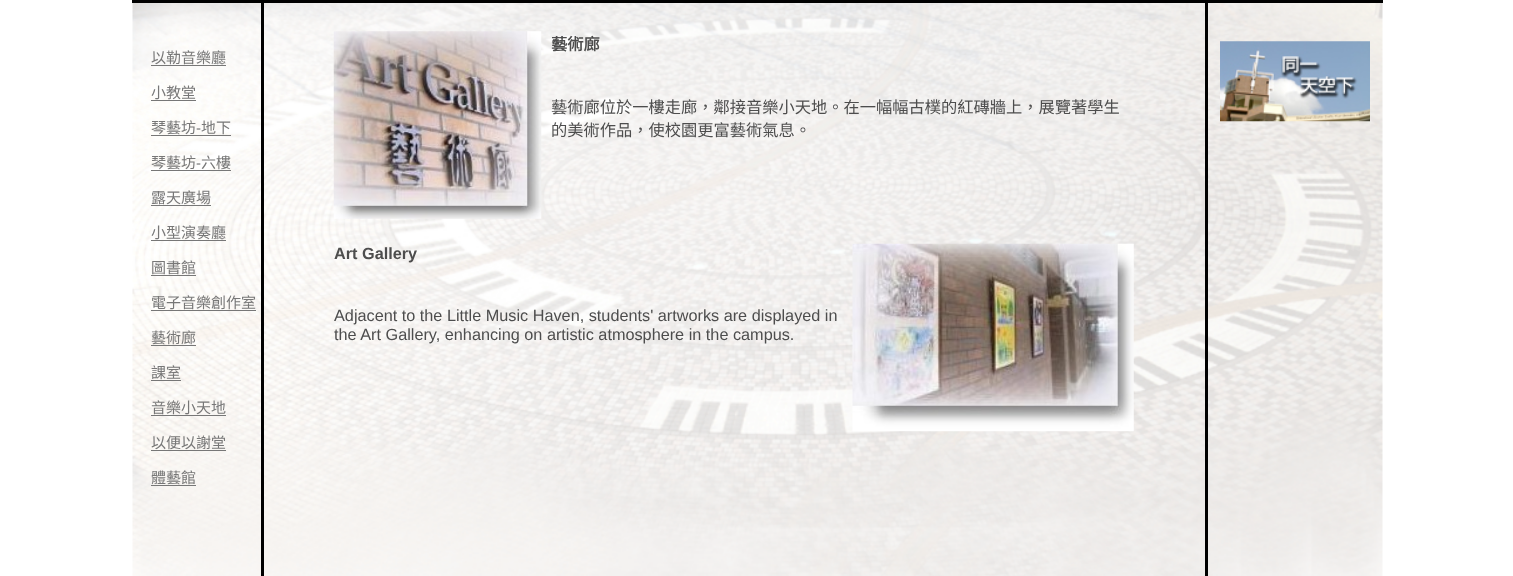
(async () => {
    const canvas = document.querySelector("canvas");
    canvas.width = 1513;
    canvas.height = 576;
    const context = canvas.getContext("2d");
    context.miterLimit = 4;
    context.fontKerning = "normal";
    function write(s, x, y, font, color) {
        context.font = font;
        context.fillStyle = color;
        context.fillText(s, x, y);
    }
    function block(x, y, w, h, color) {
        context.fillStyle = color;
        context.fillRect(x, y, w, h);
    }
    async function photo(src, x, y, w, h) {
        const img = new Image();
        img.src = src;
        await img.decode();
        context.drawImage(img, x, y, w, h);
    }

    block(0, 0, 1513, 576, "rgb(255, 255, 255)");
    await photo("media/1.png", 132, 3, 1251, 573);
    block(132, 0, 1251, 3, "rgb(0, 0, 0)");
    write("以勒音樂廳", 151, 63, "15px Noto Sans CJK TC", "rgb(119, 119, 119)");
    block(151, 65, 75, 1, "rgb(119, 119, 119)");
    write("小教堂", 151, 98, "15px Noto Sans CJK TC", "rgb(119, 119, 119)");
    block(151, 100, 45, 1, "rgb(119, 119, 119)");
    write("琴藝坊", 151, 133, "15px Noto Sans CJK TC", "rgb(119, 119, 119)");
    write("-", 196, 133, "15px Liberation Sans", "rgb(119, 119, 119)");
    block(151, 135, 80, 1, "rgb(119, 119, 119)");
    write("地下", 201, 133, "15px Noto Sans CJK TC", "rgb(119, 119, 119)");
    write("琴藝坊", 151, 168, "15px Noto Sans CJK TC", "rgb(119, 119, 119)");
    write("-", 196, 168, "15px Liberation Sans", "rgb(119, 119, 119)");
    block(151, 170, 80, 1, "rgb(119, 119, 119)");
    write("六樓", 201, 168, "15px Noto Sans CJK TC", "rgb(119, 119, 119)");
    write("露天廣場", 151, 203, "15px Noto Sans CJK TC", "rgb(119, 119, 119)");
    block(151, 205, 60, 1, "rgb(119, 119, 119)");
    write("小型演奏廳", 151, 238, "15px Noto Sans CJK TC", "rgb(119, 119, 119)");
    block(151, 240, 75, 1, "rgb(119, 119, 119)");
    write("圖書館", 151, 273, "15px Noto Sans CJK TC", "rgb(119, 119, 119)");
    block(151, 275, 45, 1, "rgb(119, 119, 119)");
    write("電子音樂創作室", 151, 308, "15px Noto Sans CJK TC", "rgb(119, 119, 119)");
    block(151, 310, 105, 1, "rgb(119, 119, 119)");
    write("藝術廊", 151, 343, "15px Noto Sans CJK TC", "rgb(119, 119, 119)");
    block(151, 345, 45, 1, "rgb(119, 119, 119)");
    write("課室", 151, 378, "15px Noto Sans CJK TC", "rgb(119, 119, 119)");
    block(151, 380, 30, 1, "rgb(119, 119, 119)");
    write("音樂小天地", 151, 413, "15px Noto Sans CJK TC", "rgb(119, 119, 119)");
    block(151, 415, 75, 1, "rgb(119, 119, 119)");
    write("以便以謝堂", 151, 448, "15px Noto Sans CJK TC", "rgb(119, 119, 119)");
    block(151, 450, 75, 1, "rgb(119, 119, 119)");
    write("體藝館", 151, 483, "15px Noto Sans CJK TC", "rgb(119, 119, 119)");
    block(151, 485, 45, 1, "rgb(119, 119, 119)");
    block(261, 3, 3, 573, "rgb(0, 0, 0)");
    await photo("media/2.png", 333, 31, 209, 188);
    write("藝術廊", 551, 50, "bold 16.25px Noto Sans CJK TC", "rgb(77, 77, 77)");
    write("藝術廊位於一樓走廊，鄰接音樂小天地。在一幅幅古樸的紅磚牆上，展覽著學生", 551, 113, "16.25px Noto Sans CJK TC", "rgb(77, 77, 77)");
    write("的美術作品，使校園更富藝術氣息。", 551, 136, "16.25px Noto Sans CJK TC", "rgb(77, 77, 77)");
    write("Art Gallery", 334, 259, "bold 16.25px Liberation Sans", "rgb(77, 77, 77)");
    await photo("media/3.png", 852, 243, 282, 189);
    write("Adjacent to the Little Music Haven, students' artworks are displayed in", 334, 321, "16.25px Liberation Sans", "rgb(77, 77, 77)");
    write("the Art Gallery, enhancing on artistic atmosphere in the campus.", 334, 340, "16.25px Liberation Sans", "rgb(77, 77, 77)");
    block(1205, 3, 3, 573, "rgb(0, 0, 0)");
    await photo("media/4.png", 1220, 41, 150, 81);
})();
